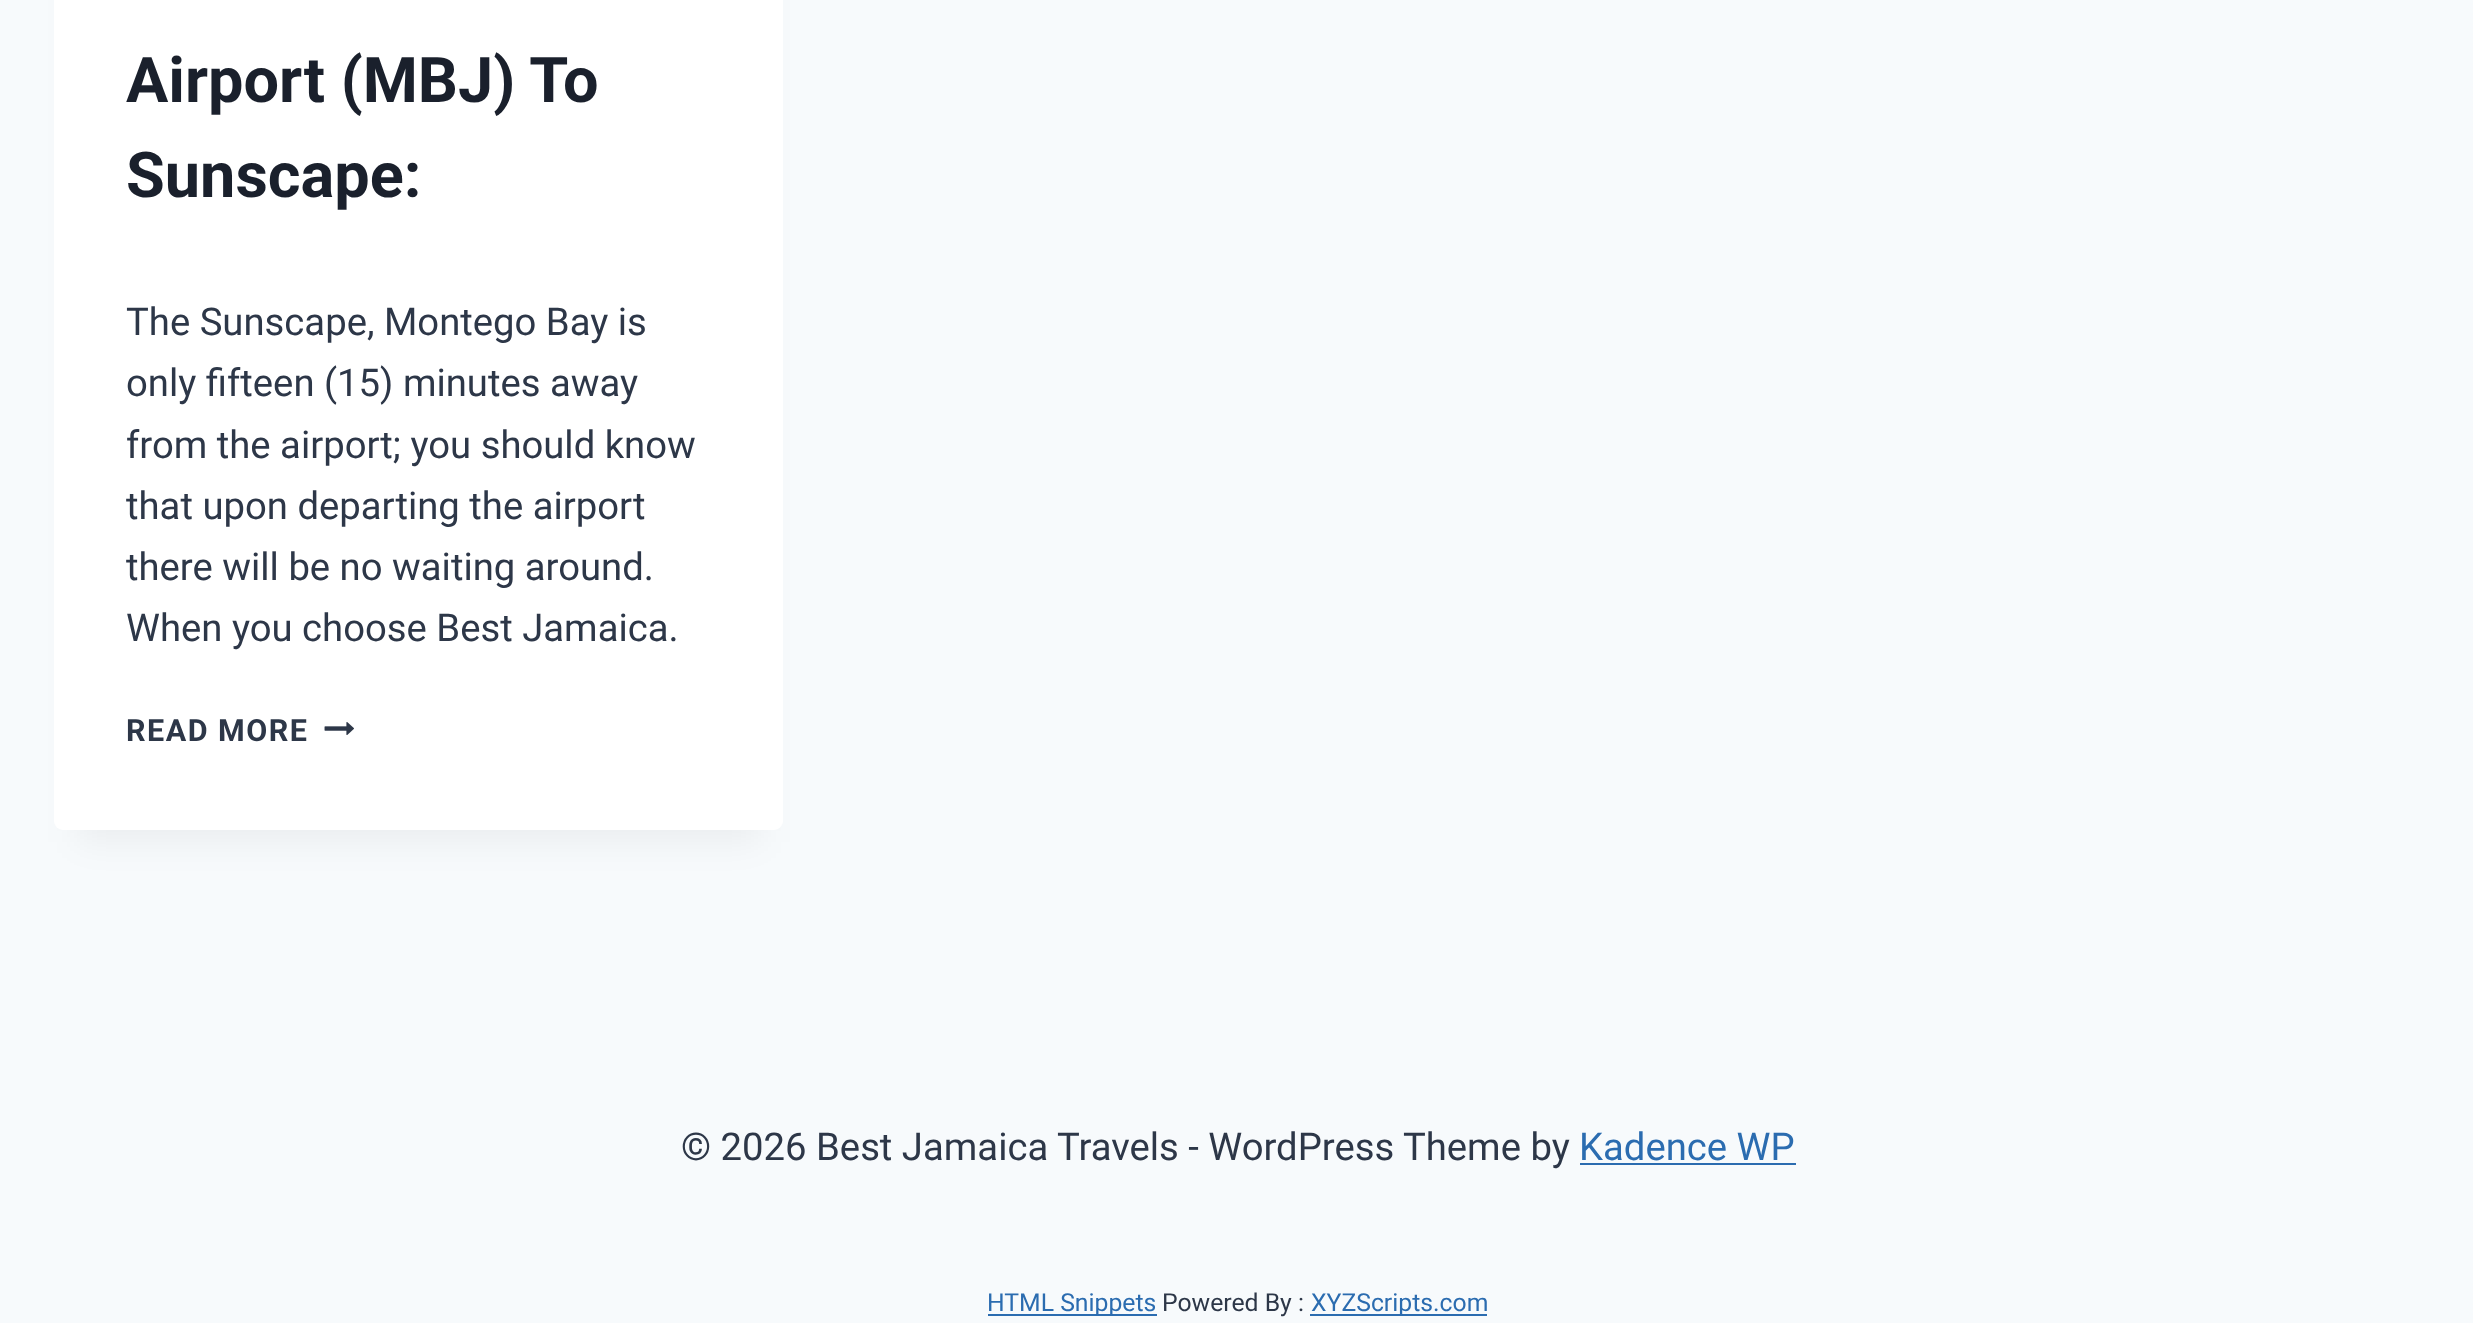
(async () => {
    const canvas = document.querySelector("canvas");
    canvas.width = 2473;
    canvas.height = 1323;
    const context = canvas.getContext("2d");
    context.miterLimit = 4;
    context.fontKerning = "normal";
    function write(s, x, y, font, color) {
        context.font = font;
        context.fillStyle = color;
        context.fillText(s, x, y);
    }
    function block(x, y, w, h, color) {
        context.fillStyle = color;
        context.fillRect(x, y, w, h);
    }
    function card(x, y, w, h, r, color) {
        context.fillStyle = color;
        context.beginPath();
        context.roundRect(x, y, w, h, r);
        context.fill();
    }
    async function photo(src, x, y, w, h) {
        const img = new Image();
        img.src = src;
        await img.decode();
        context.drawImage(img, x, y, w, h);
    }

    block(0, 0, 2473, 1323, "rgb(247, 250, 252)");
    context.fillStyle = "rgba(0, 0, 0, 0.05)";
    context.filter = "blur(17px)";
    context.beginPath();
    context.rect(77, -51, 684, 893);
    context.fill();
    context.filter = "none";
    card(54, -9, 729, 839, 9, "rgb(255, 255, 255)");
    write("Airport (MBJ) To", 126, 102, "bold 63px Roboto", "rgb(26, 32, 44)");
    write("Sunscape:", 126, 197, "bold 63px Roboto", "rgb(26, 32, 44)");
    write("The Sunscape, Montego Bay is", 126, 335, "38.25px Roboto", "rgb(45, 55, 72)");
    write("only fifteen (15) minutes away", 126, 396, "38.25px Roboto", "rgb(45, 55, 72)");
    write("from the airport; you should know", 126, 458, "38.25px Roboto", "rgb(45, 55, 72)");
    write("that upon departing the airport", 126, 519, "38.25px Roboto", "rgb(45, 55, 72)");
    write("there will be no waiting around.", 126, 580, "38.25px Roboto", "rgb(45, 55, 72)");
    write("When you choose Best Jamaica.", 126, 641, "38.25px Roboto", "rgb(45, 55, 72)");
    context.letterSpacing = "1.5px";
    write("READ MORE", 126, 741, "bold 30.5px Roboto", "rgb(45, 55, 72)");
    await photo("media/1.png", 324, 722, 30, 13);
    context.letterSpacing = "0px";
    write("© 2026 Best Jamaica Travels - WordPress Theme by", 681, 1160, "38.25px Roboto", "rgb(45, 55, 72)");
    write("Kadence WP", 1579, 1160, "38.25px Roboto", "rgb(43, 108, 176)");
    block(1580, 1163, 216, 2, "rgb(43, 108, 176)");
    block(988, 1314, 169, 2, "rgb(43, 108, 176)");
    write("HTML Snippets", 987, 1311, "24.75px Roboto", "rgb(43, 108, 176)");
    write("Powered By :", 1162, 1311, "24.75px Roboto", "rgb(45, 55, 72)");
    block(1310, 1314, 177, 2, "rgb(43, 108, 176)");
    write("XYZScripts.com", 1311, 1311, "24.75px Roboto", "rgb(43, 108, 176)");
})();
